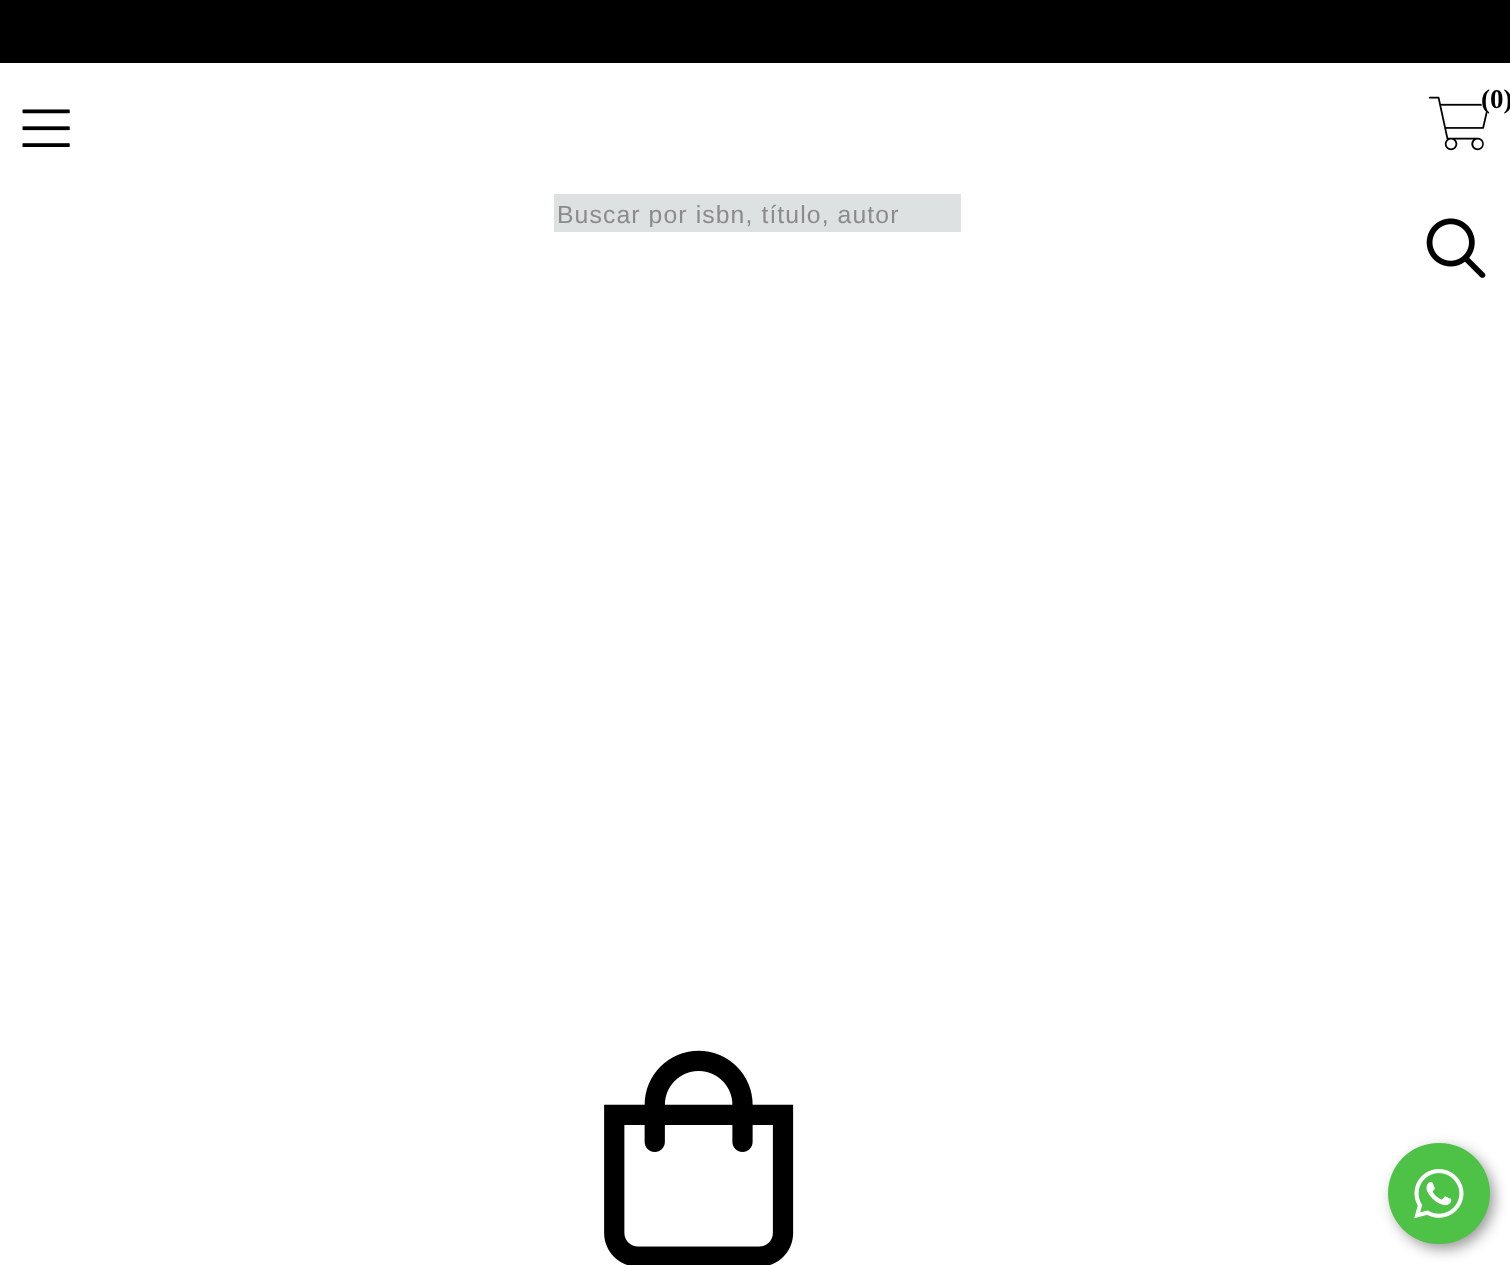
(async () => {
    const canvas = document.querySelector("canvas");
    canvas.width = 1510;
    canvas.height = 1265;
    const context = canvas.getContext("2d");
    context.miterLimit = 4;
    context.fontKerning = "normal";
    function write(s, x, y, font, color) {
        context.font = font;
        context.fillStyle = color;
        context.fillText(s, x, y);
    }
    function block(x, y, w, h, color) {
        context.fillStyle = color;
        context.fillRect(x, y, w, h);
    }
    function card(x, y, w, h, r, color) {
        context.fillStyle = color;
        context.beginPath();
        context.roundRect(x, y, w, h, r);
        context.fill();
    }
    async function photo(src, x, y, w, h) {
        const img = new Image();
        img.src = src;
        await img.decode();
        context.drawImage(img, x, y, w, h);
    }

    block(0, 0, 1510, 1265, "rgb(255, 255, 255)");
    block(0, 0, 1510, 63, "rgb(0, 0, 0)");
    await photo("media/1.png", 1428, 96, 60, 55);
    card(1481, 86, 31, 29, 14.5, "rgb(255, 255, 255)");
    write("(0)", 1481, 108, "bold 27px Liberation Serif", "rgb(0, 0, 0)");
    await photo("media/2.png", 22, 109, 48, 38);
    block(554, 194, 407, 38, "rgb(221, 225, 226)");
    context.save();
    context.beginPath();
    context.rect(558, 200, 369, 27);
    context.clip();
    context.letterSpacing = "1.1px";
    write("Buscar por isbn, título, autor", 557, 223, "24.75px Liberation Sans", "rgb(138, 139, 139)");
    context.restore();
    await photo("media/3.png", 1426, 218, 60, 60);
    await photo("media/4.png", 604, 1050, 190, 215);
    context.fillStyle = "rgba(0, 0, 0, 0.4)";
    context.filter = "blur(7px)";
    context.beginPath();
    context.roundRect(1393, 1148, 101, 101, 50.5);
    context.fill();
    context.filter = "none";
    card(1388, 1143, 102, 101, 50.5, "rgb(77, 194, 71)");
    await photo("media/5.png", 1414, 1169, 50, 50);
})();
